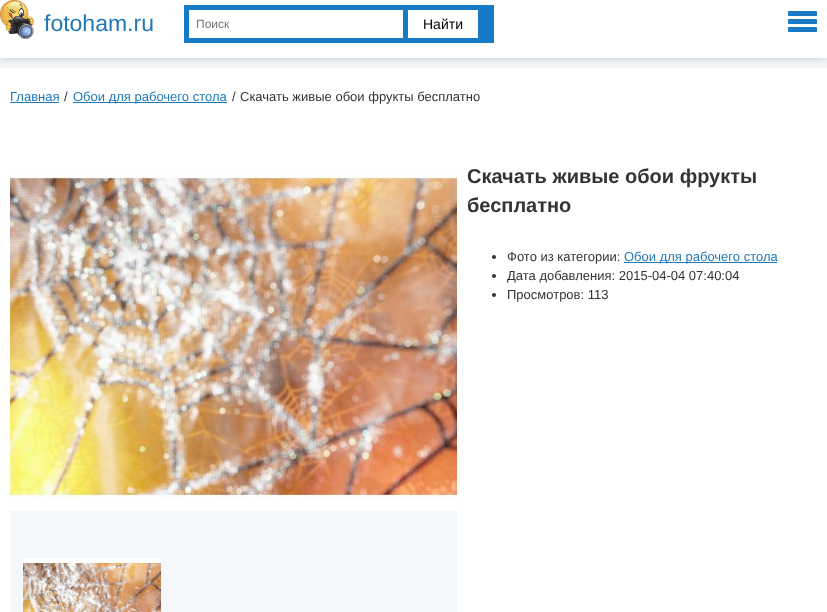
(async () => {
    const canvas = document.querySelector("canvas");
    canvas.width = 827;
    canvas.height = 612;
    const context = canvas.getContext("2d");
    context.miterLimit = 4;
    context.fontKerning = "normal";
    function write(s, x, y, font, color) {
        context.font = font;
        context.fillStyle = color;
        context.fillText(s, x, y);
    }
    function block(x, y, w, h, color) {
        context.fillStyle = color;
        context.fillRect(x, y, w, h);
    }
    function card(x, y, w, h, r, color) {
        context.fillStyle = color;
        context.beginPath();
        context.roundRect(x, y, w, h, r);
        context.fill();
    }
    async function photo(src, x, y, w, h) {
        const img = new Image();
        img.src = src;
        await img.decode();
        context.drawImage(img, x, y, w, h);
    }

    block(0, 0, 827, 612, "rgb(245, 248, 250)");
    context.fillStyle = "rgba(0, 0, 0, 0.2)";
    context.filter = "blur(5px)";
    context.beginPath();
    context.rect(0, 0, 827, 58);
    context.fill();
    context.filter = "none";
    block(0, 0, 827, 58, "rgb(255, 255, 255)");
    await photo("media/1.png", 0, 0, 34, 39);
    write("fotoham.ru", 44, 31, "23px Liberation Sans", "rgb(31, 120, 183)");
    block(184, 5, 310, 38, "rgb(22, 122, 198)");
    block(189, 10, 214, 28, "rgb(255, 255, 255)");
    write("Поиск", 196, 28, "12px Liberation Sans", "rgb(117, 117, 117)");
    block(408, 10, 70, 28, "rgb(255, 255, 255)");
    write("Найти", 423, 29, "14px Liberation Sans", "rgb(0, 0, 0)");
    card(788, 11, 29, 5, 1, "rgb(22, 122, 198)");
    card(788, 19, 29, 5, 1, "rgb(22, 122, 198)");
    card(788, 27, 29, 5, 1, "rgb(22, 122, 198)");
    block(0, 68, 827, 544, "rgb(255, 255, 255)");
    write("Главная", 10, 101, "13px Liberation Sans", "rgb(31, 120, 183)");
    block(10, 102, 49, 1, "rgb(31, 120, 183)");
    write("/", 64, 101, "13px Liberation Sans", "rgb(51, 51, 51)");
    block(73, 102, 154, 1, "rgb(31, 120, 183)");
    write("Обои для рабочего стола", 73, 101, "13px Liberation Sans", "rgb(31, 120, 183)");
    write("/", 232, 101, "13px Liberation Sans", "rgb(51, 51, 51)");
    write("Скачать живые обои фрукты бесплатно", 240, 101, "13px Liberation Sans", "rgb(51, 51, 51)");
    block(10, 511, 447, 101, "rgb(245, 248, 250)");
    await photo("media/2.png", 10, 162, 447, 349);
    await photo("media/3.png", 23, 558, 138, 54);
    write("Скачать живые обои фрукты", 467, 183, "bold 20px Liberation Sans", "rgb(51, 51, 51)");
    write("бесплатно", 467, 212, "bold 20px Liberation Sans", "rgb(51, 51, 51)");
    context.beginPath();
    context.arc(494, 257, 2, 0, Math.PI * 2);
    context.fill();
    write("Фото из категории:", 507, 261, "13px Liberation Sans", "rgb(51, 51, 51)");
    block(624, 262, 153, 1, "rgb(31, 120, 183)");
    write("Обои для рабочего стола", 624, 261, "13px Liberation Sans", "rgb(31, 120, 183)");
    context.fillStyle = "rgb(51, 51, 51)";
    context.beginPath();
    context.arc(494, 276, 2, 0, Math.PI * 2);
    context.fill();
    write("Дата добавления: 2015-04-04 07:40:04", 507, 280, "13px Liberation Sans", "rgb(51, 51, 51)");
    context.beginPath();
    context.arc(494, 295, 2, 0, Math.PI * 2);
    context.fill();
    write("Просмотров: 113", 507, 299, "13px Liberation Sans", "rgb(51, 51, 51)");
})();
